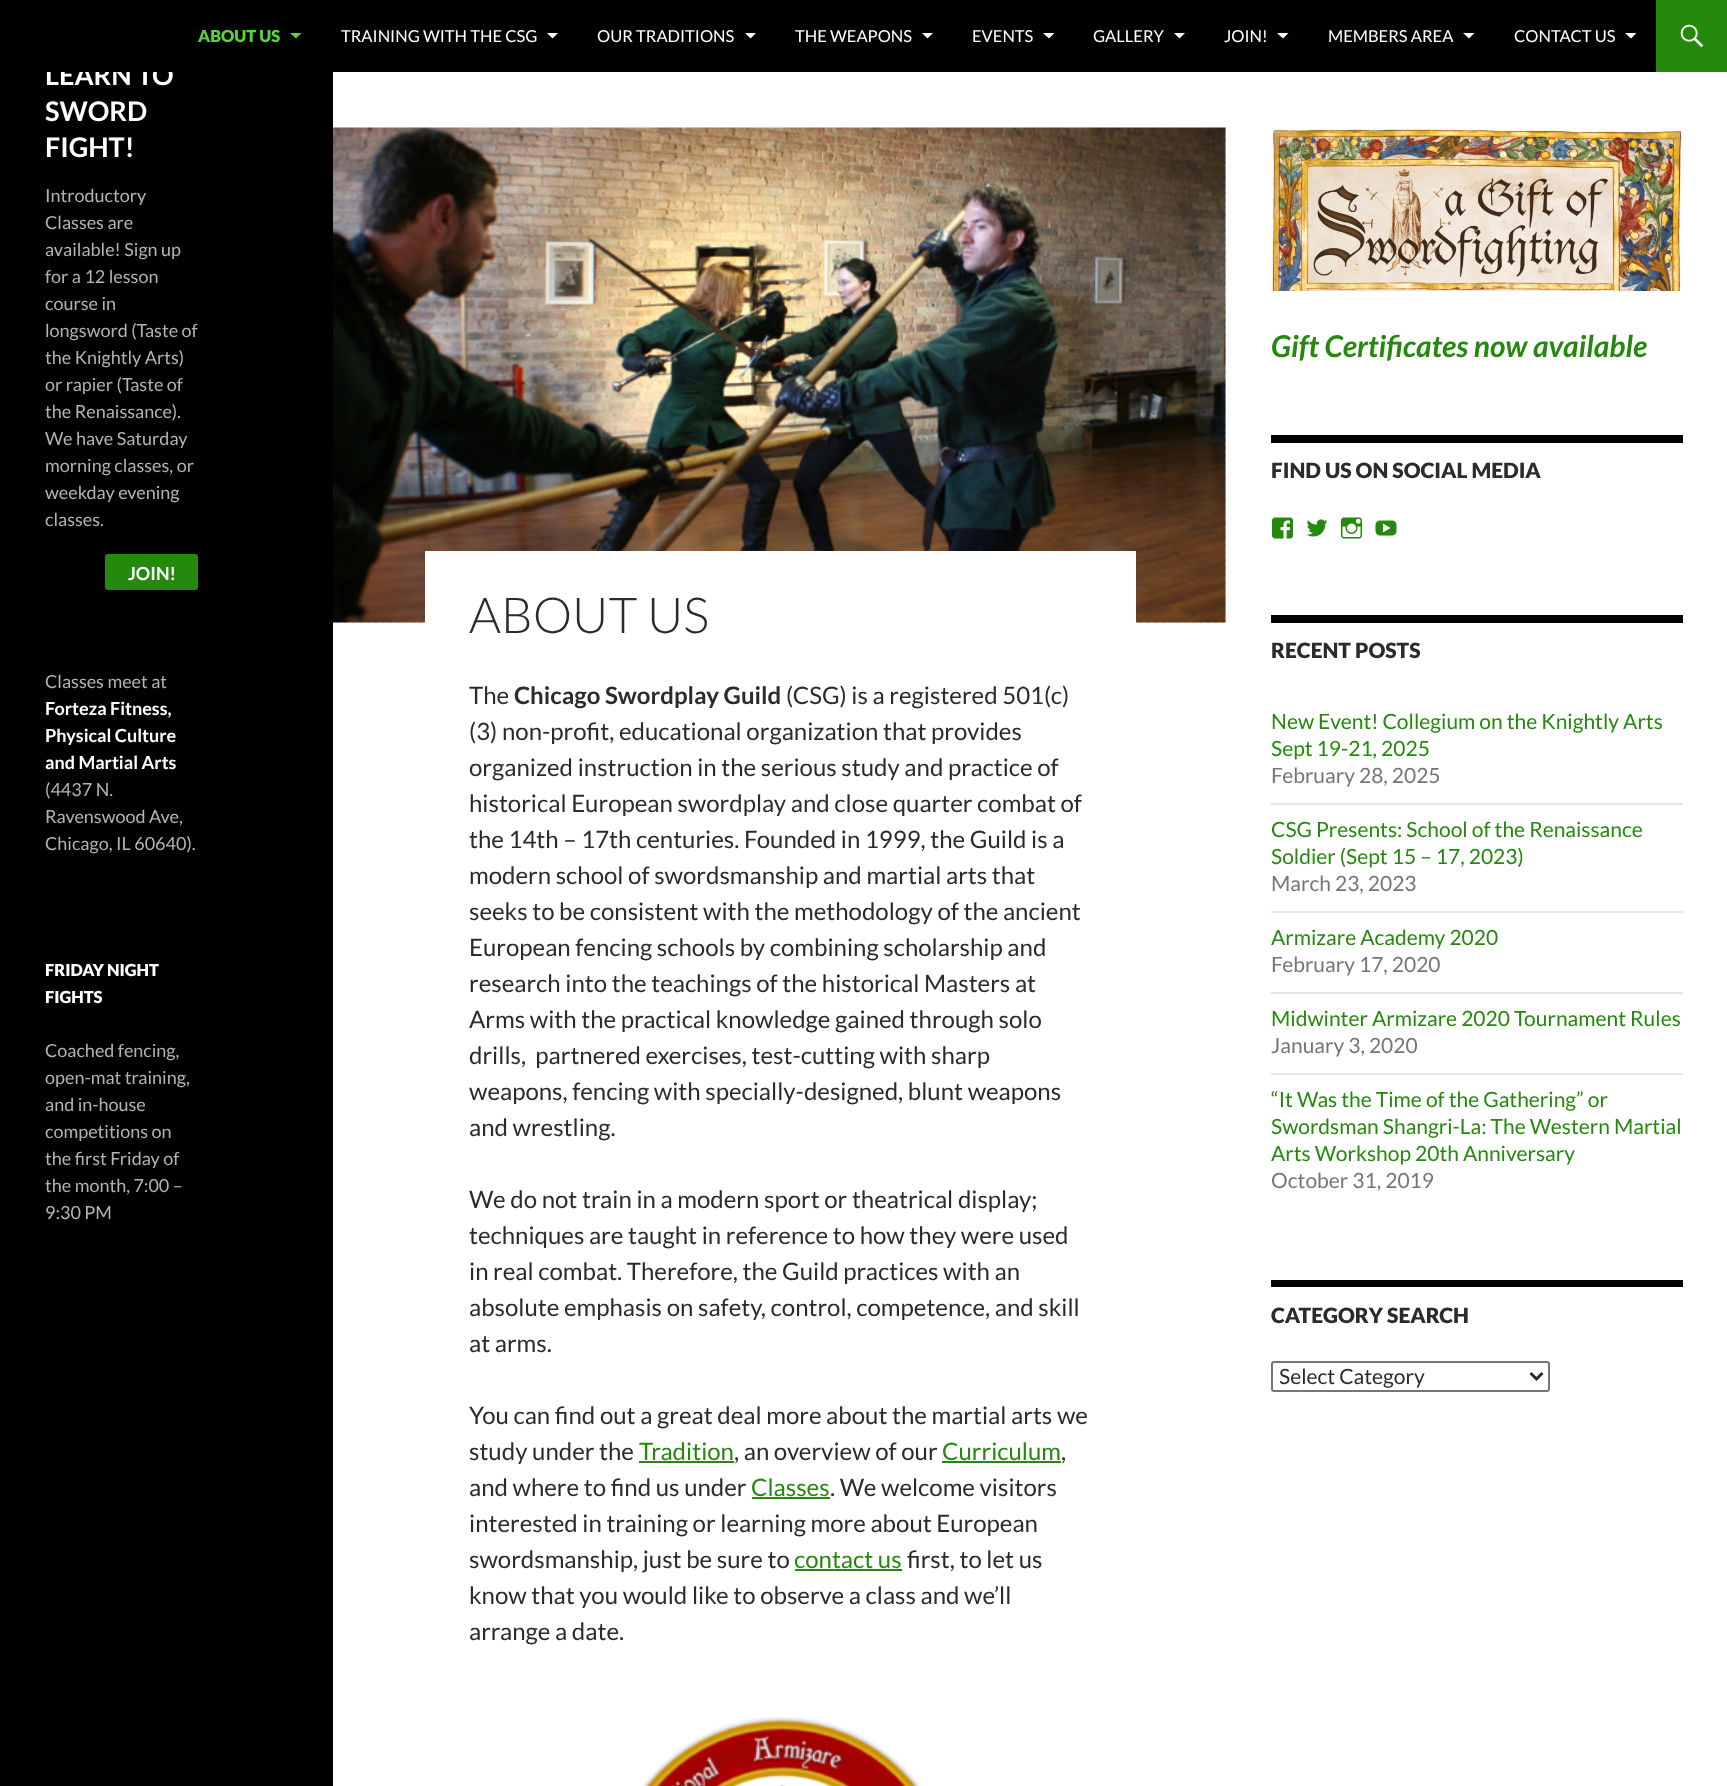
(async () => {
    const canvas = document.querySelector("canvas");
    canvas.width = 1727;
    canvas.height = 1786;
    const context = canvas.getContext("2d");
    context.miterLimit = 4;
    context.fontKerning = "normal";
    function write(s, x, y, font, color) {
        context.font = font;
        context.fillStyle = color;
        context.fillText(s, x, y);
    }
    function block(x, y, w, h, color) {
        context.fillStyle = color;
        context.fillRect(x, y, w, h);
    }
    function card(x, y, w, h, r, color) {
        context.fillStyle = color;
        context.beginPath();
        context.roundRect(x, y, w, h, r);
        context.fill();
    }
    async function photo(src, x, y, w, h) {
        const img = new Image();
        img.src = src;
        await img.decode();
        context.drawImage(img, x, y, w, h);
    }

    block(0, 0, 1727, 1786, "rgb(255, 255, 255)");
    block(0, 72, 333, 1714, "rgb(0, 0, 0)");
    write("LEARN TO", 45, 85, "bold 27px Lato", "rgb(255, 255, 255)");
    block(0, 0, 1656, 72, "rgb(0, 0, 0)");
    write("ABOUT US", 198, 42, "900 16.5px Lato", "rgb(85, 215, 55)");
    context.beginPath();
    context.moveTo(290, 33);
    context.lineTo(301.5, 33);
    context.lineTo(296, 38.5);
    context.closePath();
    context.fill();
    write("TRAINING WITH THE CSG", 341, 42, "16.5px Lato", "rgb(255, 255, 255)");
    context.beginPath();
    context.moveTo(547, 33);
    context.lineTo(558, 33);
    context.lineTo(552.5, 38.5);
    context.closePath();
    context.fill();
    write("OUR TRADITIONS", 597, 42, "16.5px Lato", "rgb(255, 255, 255)");
    context.beginPath();
    context.moveTo(745, 33);
    context.lineTo(756, 33);
    context.lineTo(750.5, 38.5);
    context.closePath();
    context.fill();
    write("THE WEAPONS", 795, 42, "16.5px Lato", "rgb(255, 255, 255)");
    context.beginPath();
    context.moveTo(922, 33);
    context.lineTo(933, 33);
    context.lineTo(927.5, 38.5);
    context.closePath();
    context.fill();
    write("EVENTS", 972, 42, "16.5px Lato", "rgb(255, 255, 255)");
    context.beginPath();
    context.moveTo(1043, 33);
    context.lineTo(1054.5, 33);
    context.lineTo(1049, 38.5);
    context.closePath();
    context.fill();
    write("GALLERY", 1093, 42, "16.5px Lato", "rgb(255, 255, 255)");
    context.beginPath();
    context.moveTo(1174, 33);
    context.lineTo(1185, 33);
    context.lineTo(1179.5, 38.5);
    context.closePath();
    context.fill();
    write("JOIN!", 1224, 42, "16.5px Lato", "rgb(255, 255, 255)");
    context.beginPath();
    context.moveTo(1277, 33);
    context.lineTo(1288.5, 33);
    context.lineTo(1283, 38.5);
    context.closePath();
    context.fill();
    write("MEMBERS AREA", 1328, 42, "16.5px Lato", "rgb(255, 255, 255)");
    context.beginPath();
    context.moveTo(1463, 33);
    context.lineTo(1474.5, 33);
    context.lineTo(1469, 38.5);
    context.closePath();
    context.fill();
    write("CONTACT US", 1514, 42, "16.5px Lato", "rgb(255, 255, 255)");
    context.beginPath();
    context.moveTo(1625, 33);
    context.lineTo(1636.5, 33);
    context.lineTo(1631, 38.5);
    context.closePath();
    context.fill();
    block(1656, 0, 71, 72, "rgb(36, 137, 13)");
    await photo("media/1.png", 1680, 24, 24, 24);
    write("SWORD", 45, 121, "bold 27px Lato", "rgb(255, 255, 255)");
    write("FIGHT!", 45, 157, "bold 27px Lato", "rgb(255, 255, 255)");
    write("Introductory", 45, 202, "18px Lato", "rgb(179, 179, 179)");
    write("Classes are", 45, 229, "18px Lato", "rgb(179, 179, 179)");
    write("available! Sign up", 45, 256, "18px Lato", "rgb(179, 179, 179)");
    write("for a 12 lesson", 45, 283, "18px Lato", "rgb(179, 179, 179)");
    write("course in", 45, 310, "18px Lato", "rgb(179, 179, 179)");
    write("longsword (Taste of", 45, 337, "18px Lato", "rgb(179, 179, 179)");
    write("the Knightly Arts)", 45, 364, "18px Lato", "rgb(179, 179, 179)");
    write("or rapier (Taste of", 45, 391, "18px Lato", "rgb(179, 179, 179)");
    write("the Renaissance).", 45, 418, "18px Lato", "rgb(179, 179, 179)");
    write("We have Saturday", 45, 445, "18px Lato", "rgb(179, 179, 179)");
    write("morning classes, or", 45, 472, "18px Lato", "rgb(179, 179, 179)");
    write("weekday evening", 45, 499, "18px Lato", "rgb(179, 179, 179)");
    write("classes.", 45, 526, "18px Lato", "rgb(179, 179, 179)");
    card(105, 554, 93, 36, 3, "rgb(36, 137, 13)");
    write("JOIN!", 128, 580, "bold 18px Lato", "rgb(255, 255, 255)");
    write("Classes meet at", 45, 688, "18px Lato", "rgb(179, 179, 179)");
    write("Forteza Fitness,", 45, 715, "bold 18px Lato", "rgb(255, 255, 255)");
    write("Physical Culture", 45, 742, "bold 18px Lato", "rgb(255, 255, 255)");
    write("and Martial Arts", 45, 769, "bold 18px Lato", "rgb(255, 255, 255)");
    write("(4437 N.", 45, 796, "18px Lato", "rgb(179, 179, 179)");
    write("Ravenswood Ave,", 45, 823, "18px Lato", "rgb(179, 179, 179)");
    write("Chicago, IL 60640).", 45, 850, "18px Lato", "rgb(179, 179, 179)");
    write("FRIDAY NIGHT", 45, 976, "900 16.5px Lato", "rgb(255, 255, 255)");
    write("FIGHTS", 45, 1003, "900 16.5px Lato", "rgb(255, 255, 255)");
    write("Coached fencing,", 45, 1057, "18px Lato", "rgb(179, 179, 179)");
    write("open-mat training,", 45, 1084, "18px Lato", "rgb(179, 179, 179)");
    write("and in-house", 45, 1111, "18px Lato", "rgb(179, 179, 179)");
    write("competitions on", 45, 1138, "18px Lato", "rgb(179, 179, 179)");
    write("the first Friday of", 45, 1165, "18px Lato", "rgb(179, 179, 179)");
    write("the month, 7:00 –", 45, 1192, "18px Lato", "rgb(179, 179, 179)");
    write("9:30 PM", 45, 1219, "18px Lato", "rgb(179, 179, 179)");
    block(337, 131, 889, 492, "rgb(178, 178, 178)");
    await photo("media/2.png", 333, 128, 893, 495);
    await photo("media/3.png", 333, 127, 893, 496);
    block(425, 551, 711, 72, "rgb(255, 255, 255)");
    write("ABOUT US", 469, 633, "300 49.5px Lato", "rgb(43, 43, 43)");
    write("The", 469, 704, "24px Lato", "rgb(43, 43, 43)");
    write("Chicago Swordplay Guild", 514, 704, "bold 24px Lato", "rgb(43, 43, 43)");
    write("(CSG) is a registered 501(c)", 786, 704, "24px Lato", "rgb(43, 43, 43)");
    write("(3) non-profit, educational organization that provides", 469, 740, "24px Lato", "rgb(43, 43, 43)");
    write("organized instruction in the serious study and practice of", 469, 776, "24px Lato", "rgb(43, 43, 43)");
    write("historical European swordplay and close quarter combat of", 469, 812, "24px Lato", "rgb(43, 43, 43)");
    write("the 14th – 17th centuries. Founded in 1999, the Guild is a", 469, 848, "24px Lato", "rgb(43, 43, 43)");
    write("modern school of swordsmanship and martial arts that", 469, 884, "24px Lato", "rgb(43, 43, 43)");
    write("seeks to be consistent with the methodology of the ancient", 469, 920, "24px Lato", "rgb(43, 43, 43)");
    write("European fencing schools by combining scholarship and", 469, 956, "24px Lato", "rgb(43, 43, 43)");
    write("research into the teachings of the historical Masters at", 469, 992, "24px Lato", "rgb(43, 43, 43)");
    write("Arms with the practical knowledge gained through solo", 469, 1028, "24px Lato", "rgb(43, 43, 43)");
    write("drills,  partnered exercises, test-cutting with sharp", 469, 1064, "24px Lato", "rgb(43, 43, 43)");
    write("weapons, fencing with specially-designed, blunt weapons", 469, 1100, "24px Lato", "rgb(43, 43, 43)");
    write("and wrestling.", 469, 1136, "24px Lato", "rgb(43, 43, 43)");
    write("We do not train in a modern sport or theatrical display;", 469, 1208, "24px Lato", "rgb(43, 43, 43)");
    write("techniques are taught in reference to how they were used", 469, 1244, "24px Lato", "rgb(43, 43, 43)");
    write("in real combat. Therefore, the Guild practices with an", 469, 1280, "24px Lato", "rgb(43, 43, 43)");
    write("absolute emphasis on safety, control, competence, and skill", 469, 1316, "24px Lato", "rgb(43, 43, 43)");
    write("at arms.", 469, 1352, "24px Lato", "rgb(43, 43, 43)");
    write("You can find out a great deal more about the martial arts we", 469, 1424, "24px Lato", "rgb(43, 43, 43)");
    write("study under the", 469, 1460, "24px Lato", "rgb(43, 43, 43)");
    write("Tradition", 639, 1460, "24px Lato", "rgb(36, 137, 13)");
    block(639, 1461, 95, 2, "rgb(36, 137, 13)");
    write(", an overview of our", 734, 1460, "24px Lato", "rgb(43, 43, 43)");
    write("Curriculum", 942, 1460, "24px Lato", "rgb(36, 137, 13)");
    block(942, 1461, 119, 2, "rgb(36, 137, 13)");
    write(",", 1061, 1460, "24px Lato", "rgb(43, 43, 43)");
    write("and where to find us under", 469, 1496, "24px Lato", "rgb(43, 43, 43)");
    write("Classes", 751, 1496, "24px Lato", "rgb(36, 137, 13)");
    block(752, 1497, 78, 2, "rgb(36, 137, 13)");
    write(". We welcome visitors", 830, 1496, "24px Lato", "rgb(43, 43, 43)");
    write("interested in training or learning more about European", 469, 1532, "24px Lato", "rgb(43, 43, 43)");
    write("swordsmanship, just be sure to", 469, 1568, "24px Lato", "rgb(43, 43, 43)");
    write("contact us", 794, 1568, "24px Lato", "rgb(36, 137, 13)");
    block(795, 1569, 107, 2, "rgb(36, 137, 13)");
    write("first, to let us", 907, 1568, "24px Lato", "rgb(43, 43, 43)");
    write("know that you would like to observe a class and we’ll", 469, 1604, "24px Lato", "rgb(43, 43, 43)");
    write("arrange a date.", 469, 1640, "24px Lato", "rgb(43, 43, 43)");
    await photo("media/4.png", 642, 1717, 279, 69);
    await photo("media/5.png", 1270, 127, 413, 164);
    write("Gift Certificates now available", 1271, 357, "italic bold 30px Lato", "rgb(36, 137, 13)");
    block(1271, 435, 412, 8, "rgb(0, 0, 0)");
    write("FIND US ON SOCIAL MEDIA", 1271, 478, "900 21px Lato", "rgb(43, 43, 43)");
    await photo("media/6.png", 1272, 517, 21, 22);
    await photo("media/7.png", 1306, 519, 22, 18);
    await photo("media/8.png", 1341, 517, 21, 22);
    await photo("media/9.png", 1375, 520, 22, 16);
    block(1271, 615, 412, 8, "rgb(0, 0, 0)");
    write("RECENT POSTS", 1271, 658, "900 21px Lato", "rgb(43, 43, 43)");
    write("New Event! Collegium on the Knightly Arts", 1271, 729, "21px Lato", "rgb(36, 137, 13)");
    write("Sept 19-21, 2025", 1271, 756, "21px Lato", "rgb(36, 137, 13)");
    write("February 28, 2025", 1271, 783, "21px Lato", "rgb(118, 118, 118)");
    block(1271, 803, 412, 2, "rgb(230, 230, 230)");
    write("CSG Presents: School of the Renaissance", 1271, 837, "21px Lato", "rgb(36, 137, 13)");
    write("Soldier (Sept 15 – 17, 2023)", 1271, 864, "21px Lato", "rgb(36, 137, 13)");
    write("March 23, 2023", 1271, 891, "21px Lato", "rgb(118, 118, 118)");
    block(1271, 911, 412, 2, "rgb(230, 230, 230)");
    write("Armizare Academy 2020", 1271, 945, "21px Lato", "rgb(36, 137, 13)");
    write("February 17, 2020", 1271, 972, "21px Lato", "rgb(118, 118, 118)");
    block(1271, 992, 412, 2, "rgb(230, 230, 230)");
    write("Midwinter Armizare 2020 Tournament Rules", 1271, 1026, "21px Lato", "rgb(36, 137, 13)");
    write("January 3, 2020", 1271, 1053, "21px Lato", "rgb(118, 118, 118)");
    block(1271, 1073, 412, 2, "rgb(230, 230, 230)");
    write("“It Was the Time of the Gathering” or", 1271, 1107, "21px Lato", "rgb(36, 137, 13)");
    write("Swordsman Shangri-La: The Western Martial", 1271, 1134, "21px Lato", "rgb(36, 137, 13)");
    write("Arts Workshop 20th Anniversary", 1271, 1161, "21px Lato", "rgb(36, 137, 13)");
    write("October 31, 2019", 1271, 1188, "21px Lato", "rgb(118, 118, 118)");
    block(1271, 1280, 412, 7, "rgb(0, 0, 0)");
    write("CATEGORY SEARCH", 1271, 1323, "900 21px Lato", "rgb(43, 43, 43)");
    context.beginPath();
    context.roundRect(1272, 1362, 277, 29, 2);
    context.strokeStyle = "rgb(118, 118, 118)";
    context.lineWidth = 2;
    context.stroke();
    context.beginPath();
    context.moveTo(1530.5, 1373);
    context.lineTo(1536.5, 1379);
    context.lineTo(1542.5, 1373);
    context.strokeStyle = "rgb(43, 43, 43)";
    context.lineWidth = 3;
    context.stroke();
    write("Select Category", 1279, 1384, "21px Lato", "rgb(43, 43, 43)");
})();
